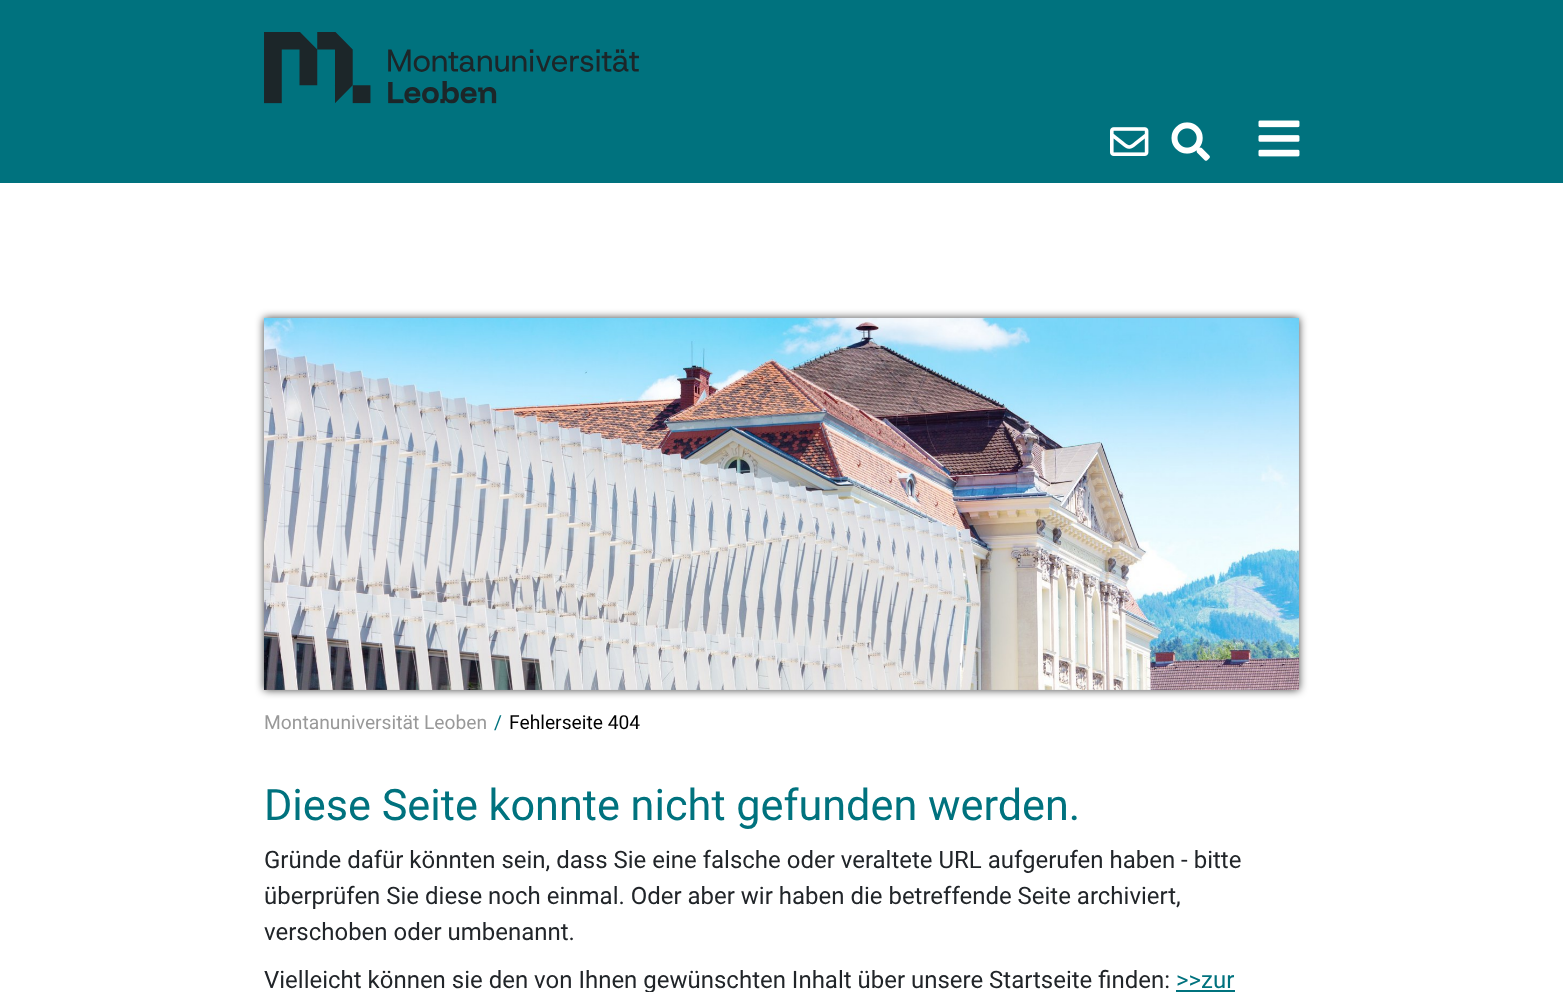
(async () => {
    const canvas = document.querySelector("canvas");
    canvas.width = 1563;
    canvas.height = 992;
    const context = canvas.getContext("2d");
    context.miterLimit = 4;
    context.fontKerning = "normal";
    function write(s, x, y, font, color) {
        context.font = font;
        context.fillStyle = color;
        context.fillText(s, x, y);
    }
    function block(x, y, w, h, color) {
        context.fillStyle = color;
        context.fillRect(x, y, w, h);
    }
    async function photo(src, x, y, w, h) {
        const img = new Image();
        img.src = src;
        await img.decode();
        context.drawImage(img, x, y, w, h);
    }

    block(0, 0, 1563, 992, "rgb(255, 255, 255)");
    block(0, 0, 1563, 183, "rgb(0, 114, 126)");
    await photo("media/1.png", 264, 32, 375, 72);
    await photo("media/2.png", 1110, 127, 39, 29);
    await photo("media/3.png", 1171, 122, 39, 39);
    await photo("media/4.png", 1258, 120, 42, 37);
    context.fillStyle = "rgba(0, 0, 0, 0.75)";
    context.filter = "blur(4px)";
    context.beginPath();
    context.rect(264, 318, 1035, 372);
    context.fill();
    context.filter = "none";
    await photo("media/5.png", 264, 317, 1035, 373);
    write("Montanuniversität Leoben", 264, 729, "19.25px Roboto", "rgb(153, 153, 153)");
    write("/", 494, 729, "19.25px Roboto", "rgb(0, 114, 126)");
    write("Fehlerseite 404", 509, 729, "19.25px Roboto", "rgb(0, 0, 0)");
    write("Diese Seite konnte nicht gefunden werden.", 264, 820, "43.25px Roboto", "rgb(0, 114, 126)");
    write("Gründe dafür könnten sein, dass Sie eine falsche oder veraltete URL aufgerufen haben - bitte", 264, 868, "24px Roboto", "rgb(33, 37, 41)");
    write("überprüfen Sie diese noch einmal. Oder aber wir haben die betreffende Seite archiviert,", 264, 904, "24px Roboto", "rgb(33, 37, 41)");
    write("verschoben oder umbenannt.", 264, 940, "24px Roboto", "rgb(33, 37, 41)");
    write("Vielleicht können sie den von Ihnen gewünschten Inhalt über unsere Startseite finden:", 264, 988, "24px Roboto", "rgb(33, 37, 41)");
    write(">>zur", 1176, 988, "24px Roboto", "rgb(0, 114, 126)");
    block(1176, 990, 59, 2, "rgb(0, 115, 126)");
})();
